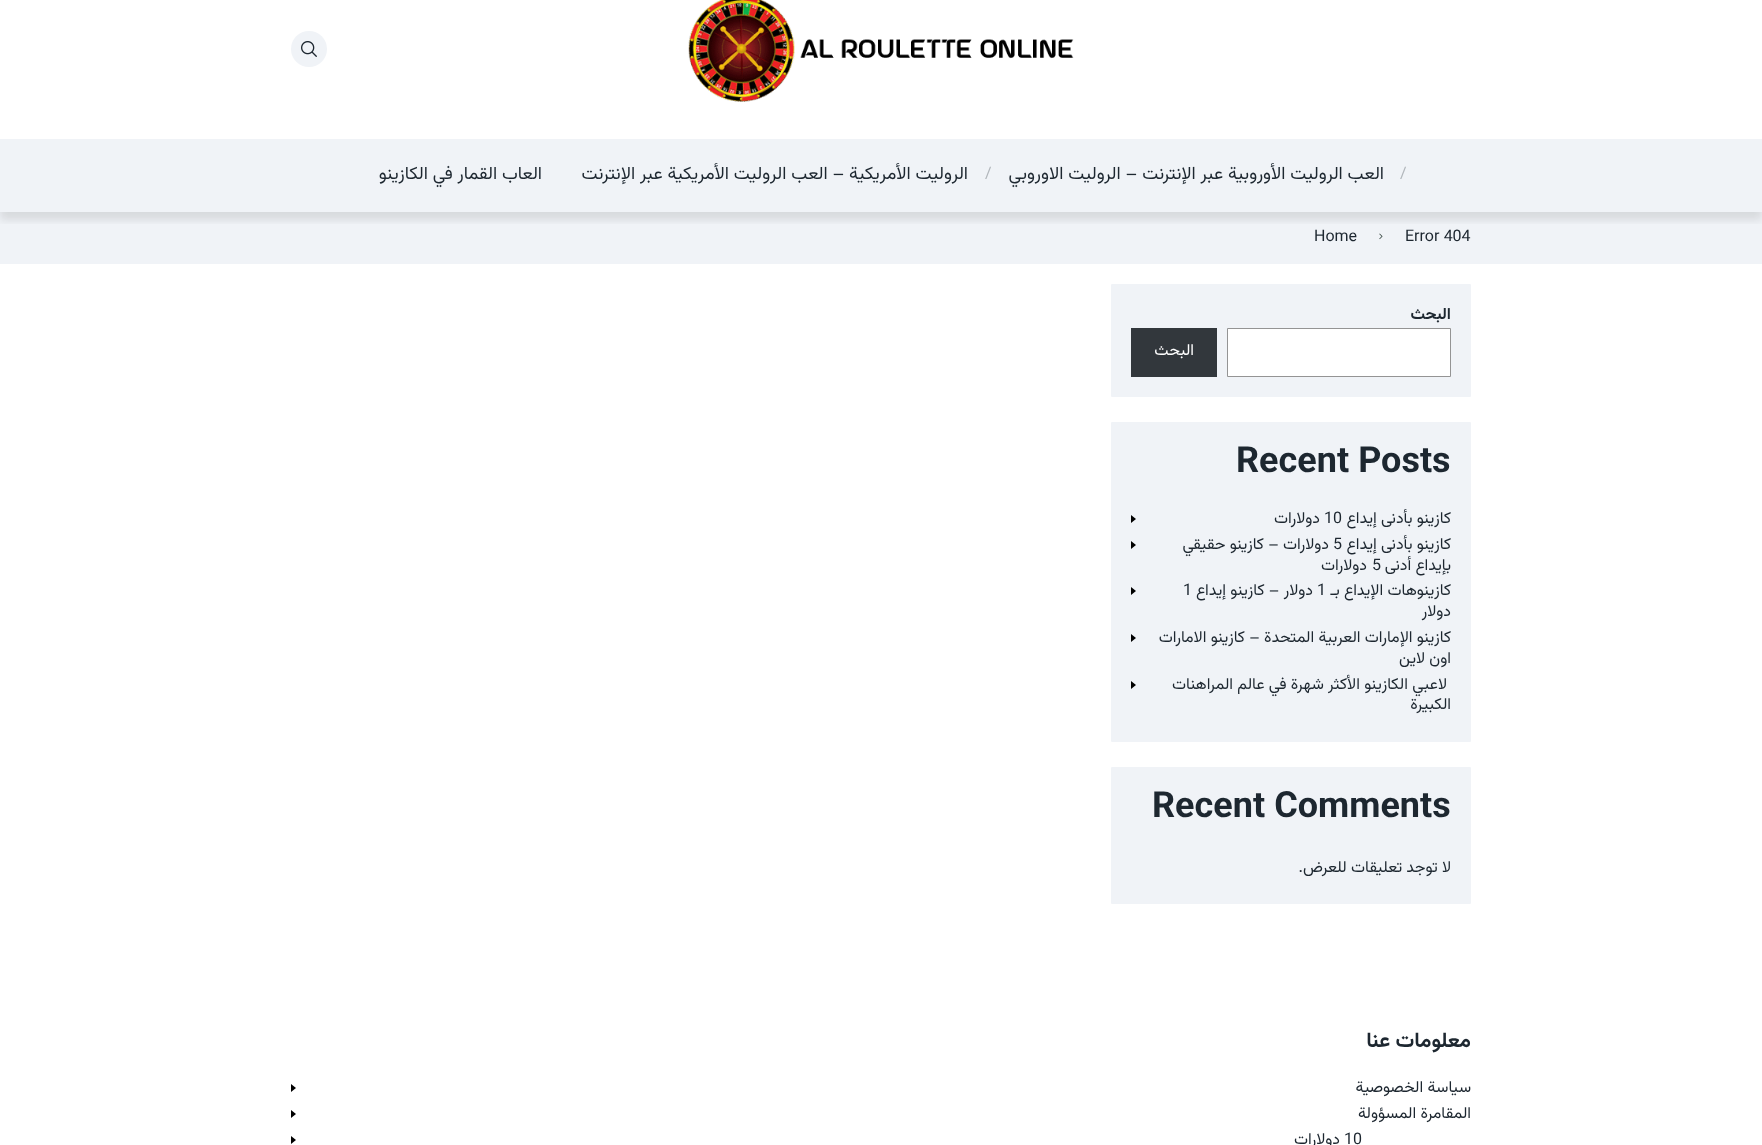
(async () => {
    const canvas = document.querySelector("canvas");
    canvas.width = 1762;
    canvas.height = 1145;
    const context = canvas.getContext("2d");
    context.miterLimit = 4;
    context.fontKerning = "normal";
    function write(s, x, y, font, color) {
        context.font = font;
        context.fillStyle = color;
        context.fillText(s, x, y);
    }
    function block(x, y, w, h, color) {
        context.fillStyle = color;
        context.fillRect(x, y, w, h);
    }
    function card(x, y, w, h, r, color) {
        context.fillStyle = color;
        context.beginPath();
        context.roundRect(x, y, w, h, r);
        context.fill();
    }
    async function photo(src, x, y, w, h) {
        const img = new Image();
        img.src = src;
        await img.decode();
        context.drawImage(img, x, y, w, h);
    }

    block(0, 0, 1762, 1145, "rgb(255, 255, 255)");
    block(0, 212, 1762, 52, "rgb(240, 243, 247)");
    await photo("media/3.png", 1379, 233, 4, 7);
    context.save();
    context.beginPath();
    context.rect(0, 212, 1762, 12);
    context.clip();
    context.fillStyle = "rgba(0, 0, 0, 0.1)";
    context.filter = "blur(4.5px)";
    context.beginPath();
    context.rect(0, -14, 1762, 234);
    context.fill();
    context.filter = "none";
    context.restore();
    await photo("media/1.png", 688, 0, 386, 102);
    context.beginPath();
    context.arc(309, 49, 18, 0, Math.PI * 2);
    context.fill();
    await photo("media/2.png", 301, 41, 16, 16);
    block(0, 139, 1762, 73, "rgb(240, 243, 247)");
    write("/", 1400, 178, "16px Vazirmatn", "rgb(177, 182, 187)");
    context.direction = "rtl";
    write("العب الروليت الأوروبية عبر الإنترنت – الروليت الاوروبي", 1384, 179, "18px Vazirmatn", "rgb(29, 39, 48)");
    context.direction = "ltr";
    write("/", 985, 178, "16px Vazirmatn", "rgb(177, 182, 187)");
    context.direction = "rtl";
    write("الروليت الأمريكية – العب الروليت الأمريكية عبر الإنترنت", 968, 179, "18px Vazirmatn", "rgb(29, 39, 48)");
    write("العاب القمار في الكازينو", 542, 179, "18px Vazirmatn", "rgb(29, 39, 48)");
    context.direction = "ltr";
    write("Error 404", 1405, 241, "16px Vazirmatn", "rgb(29, 39, 48)");
    write("Home", 1314, 241, "16px Vazirmatn", "rgb(29, 39, 48)");
    card(1111, 284, 360, 113, 1, "rgb(240, 243, 247)");
    context.direction = "rtl";
    write("البحث", 1451, 319, "bold 16px Vazirmatn", "rgb(29, 39, 48)");
    context.fillStyle = "rgb(255, 255, 255)";
    context.beginPath();
    context.rect(1227.5, 328.5, 223, 48);
    context.fill();
    context.strokeStyle = "rgb(148, 148, 148)";
    context.stroke();
    block(1131, 328, 86, 49, "rgb(50, 55, 60)");
    write("البحث", 1194, 355, "16px Vazirmatn", "rgb(255, 255, 255)");
    card(1111, 422, 360, 320, 1, "rgb(240, 243, 247)");
    context.direction = "ltr";
    write("Recent Posts", 1236, 472, "bold 36px Vazirmatn", "rgb(29, 39, 48)");
    context.direction = "rtl";
    write("كازينو بأدنى إيداع", 1451, 523, "16px Vazirmatn", "rgb(29, 39, 48)");
    context.direction = "ltr";
    write("10", 1324, 523, "16px Vazirmatn", "rgb(29, 39, 48)");
    context.direction = "rtl";
    write("دولارات", 1320, 523, "16px Vazirmatn", "rgb(29, 39, 48)");
    context.fillStyle = "rgb(0, 0, 0)";
    context.beginPath();
    context.moveTo(1131, 523);
    context.lineTo(1131, 515);
    context.lineTo(1136, 519);
    context.closePath();
    context.fill();
    write("كازينو بأدنى إيداع", 1451, 549, "16px Vazirmatn", "rgb(29, 39, 48)");
    context.direction = "ltr";
    write("5", 1333, 549, "16px Vazirmatn", "rgb(29, 39, 48)");
    context.direction = "rtl";
    write("دولارات – كازينو حقيقي", 1329, 549, "16px Vazirmatn", "rgb(29, 39, 48)");
    write("بإيداع أدنى", 1451, 570, "16px Vazirmatn", "rgb(29, 39, 48)");
    context.direction = "ltr";
    write("5", 1372, 570, "16px Vazirmatn", "rgb(29, 39, 48)");
    context.direction = "rtl";
    write("دولارات", 1367, 570, "16px Vazirmatn", "rgb(29, 39, 48)");
    context.fillStyle = "rgb(0, 0, 0)";
    context.beginPath();
    context.moveTo(1131, 549);
    context.lineTo(1131, 541);
    context.lineTo(1136, 545);
    context.closePath();
    context.fill();
    write("كازينوهات الإيداع بـ", 1451, 595, "16px Vazirmatn", "rgb(29, 39, 48)");
    context.direction = "ltr";
    write("1", 1317, 595, "16px Vazirmatn", "rgb(29, 39, 48)");
    context.direction = "rtl";
    write("دولار – كازينو إيداع", 1313, 595, "16px Vazirmatn", "rgb(29, 39, 48)");
    context.direction = "ltr";
    write("1", 1183, 595, "16px Vazirmatn", "rgb(29, 39, 48)");
    context.direction = "rtl";
    write("دولار", 1451, 616, "16px Vazirmatn", "rgb(29, 39, 48)");
    context.fillStyle = "rgb(0, 0, 0)";
    context.beginPath();
    context.moveTo(1131, 595);
    context.lineTo(1131, 587);
    context.lineTo(1136, 591);
    context.closePath();
    context.fill();
    write("كازينو الإمارات العربية المتحدة – كازينو الامارات", 1451, 642, "16px Vazirmatn", "rgb(29, 39, 48)");
    write("اون لاين", 1451, 663, "16px Vazirmatn", "rgb(29, 39, 48)");
    context.fillStyle = "rgb(0, 0, 0)";
    context.beginPath();
    context.moveTo(1131, 642);
    context.lineTo(1131, 634);
    context.lineTo(1136, 638);
    context.closePath();
    context.fill();
    write("لاعبي الكازينو الأكثر شهرة في عالم المراهنات", 1447, 689, "16px Vazirmatn", "rgb(29, 39, 48)");
    write("الكبيرة", 1451, 709, "16px Vazirmatn", "rgb(29, 39, 48)");
    context.fillStyle = "rgb(0, 0, 0)";
    context.beginPath();
    context.moveTo(1131, 689);
    context.lineTo(1131, 681);
    context.lineTo(1136, 685);
    context.closePath();
    context.fill();
    card(1111, 767, 360, 137, 1, "rgb(240, 243, 247)");
    context.direction = "ltr";
    write("Recent Comments", 1152, 817, "bold 36px Vazirmatn", "rgb(29, 39, 48)");
    context.direction = "rtl";
    write("لا توجد تعليقات للعرض.", 1451, 872, "16px Vazirmatn", "rgb(29, 39, 48)");
    write("معلومات عنا", 1471, 1047, "bold 21px Vazirmatn", "rgb(29, 39, 48)");
    write("سياسة الخصوصية", 1471, 1092, "16px Vazirmatn", "rgb(29, 39, 48)");
    context.fillStyle = "rgb(0, 0, 0)";
    context.beginPath();
    context.moveTo(291, 1092);
    context.lineTo(291, 1084);
    context.lineTo(296, 1088);
    context.closePath();
    context.fill();
    write("المقامرة المسؤولة", 1471, 1118, "16px Vazirmatn", "rgb(29, 39, 48)");
    context.fillStyle = "rgb(0, 0, 0)";
    context.beginPath();
    context.moveTo(291, 1118);
    context.lineTo(291, 1110);
    context.lineTo(296, 1114);
    context.closePath();
    context.fill();
    context.direction = "ltr";
    write("10", 1344, 1144, "16px Vazirmatn", "rgb(29, 39, 48)");
    context.direction = "rtl";
    write("دولارات", 1340, 1144, "16px Vazirmatn", "rgb(29, 39, 48)");
    context.fillStyle = "rgb(0, 0, 0)";
    context.beginPath();
    context.moveTo(291, 1144);
    context.lineTo(291, 1136);
    context.lineTo(296, 1140);
    context.closePath();
    context.fill();
})();
